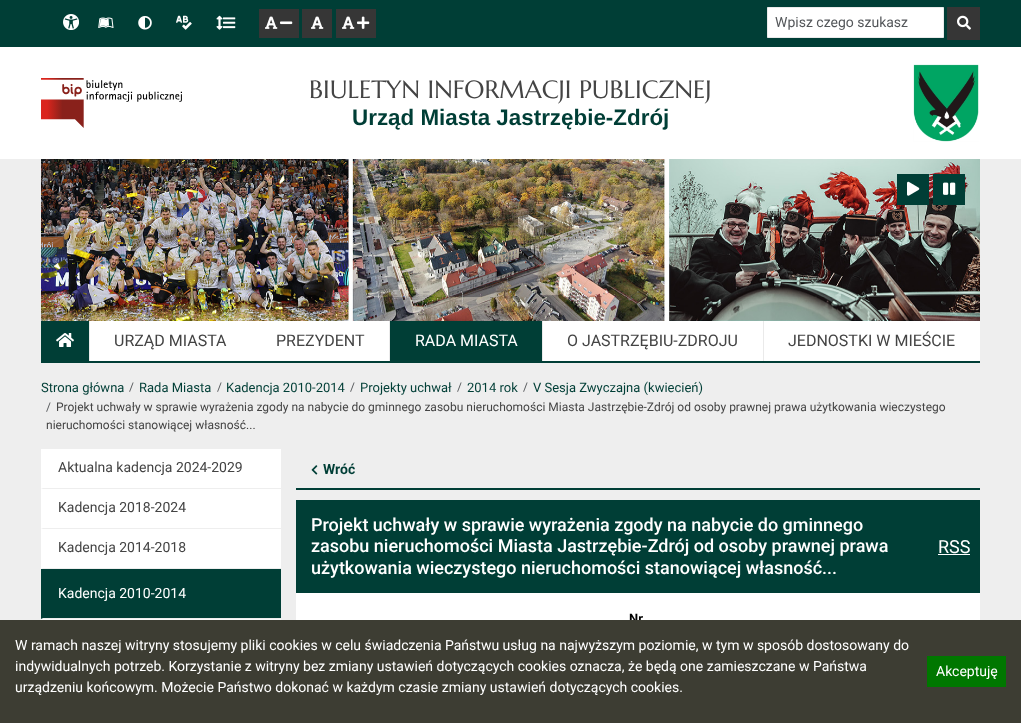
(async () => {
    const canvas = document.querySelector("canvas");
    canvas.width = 1021;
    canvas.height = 723;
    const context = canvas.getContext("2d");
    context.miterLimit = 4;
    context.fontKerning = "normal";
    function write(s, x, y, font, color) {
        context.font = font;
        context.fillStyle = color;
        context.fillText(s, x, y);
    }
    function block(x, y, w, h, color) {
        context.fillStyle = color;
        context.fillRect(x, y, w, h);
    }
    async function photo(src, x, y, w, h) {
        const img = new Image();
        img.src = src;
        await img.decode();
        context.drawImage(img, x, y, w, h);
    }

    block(0, 0, 1021, 723, "rgb(238, 238, 238)");
    block(0, 0, 1021, 47, "rgb(0, 62, 54)");
    await photo("media/1.png", 63, 14, 16, 16);
    await photo("media/2.png", 98, 17, 16, 11);
    await photo("media/3.png", 138, 16, 14, 14);
    await photo("media/4.png", 176, 15, 16, 15);
    await photo("media/5.png", 216, 15, 20, 15);
    block(259, 9, 40, 29, "rgb(54, 54, 54)");
    await photo("media/6.png", 265, 16, 13, 13);
    await photo("media/7.png", 280, 21, 13, 4);
    block(302, 9, 30, 29, "rgb(54, 54, 54)");
    await photo("media/6.png", 311, 16, 13, 13);
    block(336, 9, 40, 29, "rgb(54, 54, 54)");
    await photo("media/6.png", 342, 16, 13, 13);
    await photo("media/8.png", 357, 16, 13, 13);
    context.fillStyle = "rgb(255, 255, 255)";
    context.beginPath();
    context.rect(767.5, 7.5, 176, 30);
    context.fill();
    context.strokeStyle = "rgb(234, 234, 234)";
    context.stroke();
    write("Wpisz czego szukasz", 775, 27, "14px Roboto", "rgb(84, 87, 90)");
    block(947, 7, 33, 33, "rgb(54, 54, 54)");
    await photo("media/9.png", 957, 15, 14, 15);
    block(0, 47, 1021, 112, "rgb(255, 255, 255)");
    await photo("media/10.png", 41, 78, 141, 50);
    write("BIULETYN INFORMACJI PUBLICZNEJ", 309, 98, "25px Marcellus", "rgb(68, 68, 68)");
    write("Urząd Miasta Jastrzębie-Zdrój", 352, 125, "bold 22.4px Liberation Sans", "rgb(0, 62, 54)");
    await photo("media/11.png", 913, 64, 66, 78);
    await photo("media/12.png", 41, 159, 939, 162);
    block(897, 174, 32, 31, "rgb(0, 62, 54)");
    await photo("media/13.png", 907, 181, 13, 15);
    block(933, 174, 32, 31, "rgb(0, 62, 54)");
    await photo("media/14.png", 943, 182, 13, 13);
    block(296, 593, 684, 27, "rgb(255, 255, 255)");
    write("Nr", 629, 623, "bold 13px Roboto", "rgb(0, 0, 0)");
    block(0, 620, 1021, 103, "rgb(61, 61, 51)");
    write("W ramach naszej witryny stosujemy pliki cookies w celu świadczenia Państwu usług na najwyższym poziomie, w tym w sposób dostosowany do", 15, 650, "14px Roboto", "rgb(255, 255, 255)");
    write("indywidualnych potrzeb. Korzystanie z witryny bez zmiany ustawień dotyczących cookies oznacza, że będą one zamieszczane w Państwa", 15, 671, "14px Roboto", "rgb(255, 255, 255)");
    write("urządzeniu końcowym. Możecie Państwo dokonać w każdym czasie zmiany ustawień dotyczących cookies.", 15, 692, "14px Roboto", "rgb(255, 255, 255)");
    block(927, 656, 79, 31, "rgb(0, 119, 0)");
    write("Akceptuję", 936, 676, "14px Roboto", "rgb(255, 255, 255)");
    block(90, 321, 890, 40, "rgb(255, 255, 255)");
    block(41, 361, 939, 2, "rgb(0, 62, 54)");
    block(41, 321, 48, 40, "rgb(0, 62, 54)");
    await photo("media/15.png", 56, 333, 18, 14);
    block(89, 321, 1, 40, "rgb(234, 234, 234)");
    write("URZĄD MIASTA", 114, 346, "16px Roboto", "rgb(68, 68, 68)");
    write("PREZYDENT", 276, 346, "16px Roboto", "rgb(68, 68, 68)");
    block(390, 321, 152, 40, "rgb(0, 62, 54)");
    block(389, 321, 1, 40, "rgb(234, 234, 234)");
    write("RADA MIASTA", 415, 346, "16px Roboto", "rgb(255, 255, 255)");
    block(542, 321, 1, 40, "rgb(234, 234, 234)");
    write("O JASTRZĘBIU-ZDROJU", 567, 346, "16px Roboto", "rgb(68, 68, 68)");
    block(763, 321, 1, 40, "rgb(234, 234, 234)");
    write("JEDNOSTKI W MIEŚCIE", 788, 346, "16px Roboto", "rgb(68, 68, 68)");
    write("Strona główna", 41, 392, "13px Roboto", "rgb(0, 62, 54)");
    write("/", 129, 391, "12px Roboto", "rgb(84, 87, 90)");
    write("Rada Miasta", 139, 392, "13px Roboto", "rgb(0, 62, 54)");
    write("/", 217, 391, "12px Roboto", "rgb(84, 87, 90)");
    write("Kadencja 2010-2014", 226, 392, "13px Roboto", "rgb(0, 62, 54)");
    write("/", 350, 391, "12px Roboto", "rgb(84, 87, 90)");
    write("Projekty uchwał", 360, 392, "13px Roboto", "rgb(0, 62, 54)");
    write("/", 457, 391, "12px Roboto", "rgb(84, 87, 90)");
    write("2014 rok", 467, 392, "13px Roboto", "rgb(0, 62, 54)");
    write("/", 523, 391, "12px Roboto", "rgb(84, 87, 90)");
    write("V Sesja Zwyczajna (kwiecień)", 533, 392, "13px Roboto", "rgb(0, 62, 54)");
    write("/", 46, 411, "12px Roboto", "rgb(84, 87, 90)");
    write("Projekt uchwały w sprawie wyrażenia zgody na nabycie do gminnego zasobu nieruchomości Miasta Jastrzębie-Zdrój od osoby prawnej prawa użytkowania wieczystego", 56, 411, "12px Roboto", "rgb(68, 68, 68)");
    write("nieruchomości stanowiącej własność...", 46, 429, "12px Roboto", "rgb(68, 68, 68)");
    block(41, 449, 240, 120, "rgb(255, 255, 255)");
    context.fillStyle = "rgb(238, 238, 238)";
    context.beginPath();
    context.moveTo(281, 489);
    context.lineTo(41, 489);
    context.lineTo(43, 488);
    context.lineTo(281, 488);
    context.closePath();
    context.fill();
    write("Aktualna kadencja 2024-2029", 58, 472, "14px Roboto", "rgb(68, 68, 68)");
    context.fillStyle = "rgb(238, 238, 238)";
    context.beginPath();
    context.moveTo(281, 529);
    context.lineTo(41, 529);
    context.lineTo(43, 528);
    context.lineTo(281, 528);
    context.closePath();
    context.fill();
    write("Kadencja 2018-2024", 58, 512, "14px Roboto", "rgb(68, 68, 68)");
    context.fillStyle = "rgb(238, 238, 238)";
    context.beginPath();
    context.moveTo(281, 569);
    context.lineTo(41, 569);
    context.lineTo(43, 568);
    context.lineTo(281, 568);
    context.closePath();
    context.fill();
    write("Kadencja 2014-2018", 58, 552, "14px Roboto", "rgb(68, 68, 68)");
    block(41, 569, 240, 50, "rgb(0, 62, 54)");
    context.fillStyle = "rgb(238, 238, 238)";
    context.beginPath();
    context.moveTo(281, 619);
    context.lineTo(41, 619);
    context.lineTo(43, 618);
    context.lineTo(281, 618);
    context.closePath();
    context.fill();
    write("Kadencja 2010-2014", 58, 598, "14px Roboto", "rgb(255, 255, 255)");
    block(41, 619, 240, 1, "rgb(248, 249, 250)");
    block(296, 488, 684, 2, "rgb(0, 62, 54)");
    await photo("media/16.png", 311, 465, 7, 10);
    write("Wróć", 323, 474, "bold 14px Roboto", "rgb(0, 62, 54)");
    block(296, 500, 684, 93, "rgb(0, 62, 54)");
    write("Projekt uchwały w sprawie wyrażenia zgody na nabycie do gminnego", 311, 531, "500 18px Roboto", "rgb(255, 255, 255)");
    write("zasobu nieruchomości Miasta Jastrzębie-Zdrój od osoby prawnej prawa", 311, 552, "500 18px Roboto", "rgb(255, 255, 255)");
    write("użytkowania wieczystego nieruchomości stanowiącej własność...", 311, 574, "500 18px Roboto", "rgb(255, 255, 255)");
    write("RSS", 938, 553, "18px Roboto", "rgb(255, 255, 255)");
    block(938, 554, 32, 1, "rgb(255, 255, 255)");
})();
